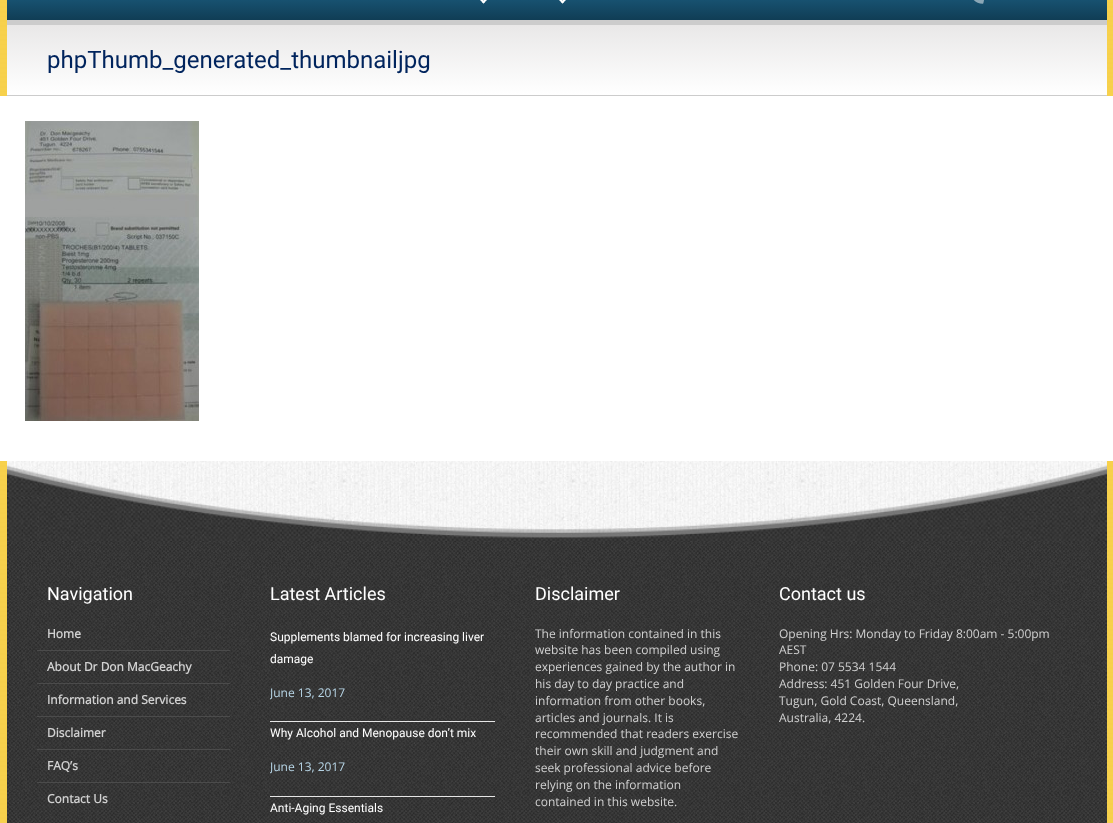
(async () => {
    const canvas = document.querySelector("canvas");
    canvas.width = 1113;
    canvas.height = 823;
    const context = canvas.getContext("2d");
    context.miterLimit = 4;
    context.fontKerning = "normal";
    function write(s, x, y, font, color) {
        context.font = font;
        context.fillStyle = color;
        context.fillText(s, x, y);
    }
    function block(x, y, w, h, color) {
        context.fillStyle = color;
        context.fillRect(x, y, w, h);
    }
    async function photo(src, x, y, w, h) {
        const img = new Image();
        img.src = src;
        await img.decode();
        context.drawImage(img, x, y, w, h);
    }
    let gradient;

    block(0, 0, 1113, 823, "rgb(255, 255, 255)");
    await photo("media/1.png", 0, 0, 1113, 823);
    gradient = context.createLinearGradient(469, -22, 469, 20);
    gradient.addColorStop(0, "rgb(31, 104, 142)");
    gradient.addColorStop(1, "rgb(16, 61, 85)");
    context.fillStyle = gradient;
    context.fillRect(7, 0, 924, 20);
    context.fillStyle = "rgb(255, 255, 255)";
    context.beginPath();
    context.moveTo(488.5, -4.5);
    context.lineTo(490, -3);
    context.lineTo(483.5, 3.5);
    context.lineTo(482, 2);
    context.closePath();
    context.fill();
    context.beginPath();
    context.moveTo(478.5, -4.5);
    context.lineTo(485, 2);
    context.lineTo(483.5, 3.5);
    context.lineTo(477, -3);
    context.closePath();
    context.fill();
    context.beginPath();
    context.moveTo(567.5, -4.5);
    context.lineTo(569, -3);
    context.lineTo(562.5, 3.5);
    context.lineTo(561, 2);
    context.closePath();
    context.fill();
    context.beginPath();
    context.moveTo(557.5, -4.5);
    context.lineTo(564, 2);
    context.lineTo(562.5, 3.5);
    context.lineTo(556, -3);
    context.closePath();
    context.fill();
    gradient = context.createLinearGradient(1019, -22, 1019, 20);
    gradient.addColorStop(0, "rgb(31, 104, 142)");
    gradient.addColorStop(1, "rgb(16, 61, 85)");
    context.fillStyle = gradient;
    context.fillRect(931, 0, 176, 20);
    await photo("media/2.png", 973, 0, 11, 4);
    gradient = context.createLinearGradient(557, 25, 557, 95);
    gradient.addColorStop(0, "rgb(233, 232, 232)");
    gradient.addColorStop(1, "rgb(255, 255, 255)");
    context.fillStyle = gradient;
    context.fillRect(7, 25, 1100, 70);
    block(7, 20, 1100, 5, "rgb(204, 204, 204)");
    block(7, 95, 1100, 1, "rgb(204, 204, 204)");
    write("phpThumb_generated_thumbnailjpg", 47, 68, "24px Roboto", "rgb(0, 36, 93)");
    block(0, 96, 1113, 365, "rgb(255, 255, 255)");
    await photo("media/3.png", 25, 121, 174, 300);
    await photo("media/4.png", 7, 461, 1100, 81);
    await photo("media/5.png", 7, 542, 1100, 281);
    write("Navigation", 47, 600, "18px Roboto", "rgb(255, 255, 255)");
    write("Home", 47, 638, "bold 12px Open Sans", "rgb(209, 209, 209)");
    block(37, 650, 193, 1, "rgb(75, 75, 75)");
    write("About Dr Don MacGeachy", 47, 671, "bold 12px Open Sans", "rgb(209, 209, 209)");
    block(37, 683, 193, 1, "rgb(75, 75, 75)");
    write("Information and Services", 47, 704, "bold 12px Open Sans", "rgb(209, 209, 209)");
    block(37, 716, 193, 1, "rgb(75, 75, 75)");
    write("Disclaimer", 47, 737, "bold 12px Open Sans", "rgb(209, 209, 209)");
    block(37, 749, 193, 1, "rgb(75, 75, 75)");
    write("FAQ’s", 47, 770, "bold 12px Open Sans", "rgb(209, 209, 209)");
    block(37, 782, 193, 1, "rgb(75, 75, 75)");
    write("Contact Us", 47, 803, "bold 12px Open Sans", "rgb(209, 209, 209)");
    write("Latest Articles", 270, 600, "18px Roboto", "rgb(255, 255, 255)");
    block(270, 721, 225, 1, "rgb(230, 230, 230)");
    write("Supplements blamed for increasing liver", 270, 641, "12px Roboto", "rgb(255, 255, 255)");
    write("damage", 270, 663, "12px Roboto", "rgb(255, 255, 255)");
    context.save();
    context.beginPath();
    context.rect(270, 626, 225, 95);
    context.clip();
    write("June 13, 2017", 270, 697, "12px Open Sans", "rgb(183, 213, 230)");
    context.restore();
    block(270, 796, 225, 1, "rgb(230, 230, 230)");
    write("Why Alcohol and Menopause don’t mix", 270, 737, "12px Roboto", "rgb(255, 255, 255)");
    context.save();
    context.beginPath();
    context.rect(270, 722, 225, 74);
    context.clip();
    write("June 13, 2017", 270, 771, "12px Open Sans", "rgb(183, 213, 230)");
    context.restore();
    write("Anti-Aging Essentials", 270, 812, "12px Roboto", "rgb(255, 255, 255)");
    write("Disclaimer", 535, 600, "18px Roboto", "rgb(255, 255, 255)");
    write("The information contained in this", 535, 638, "12px Open Sans", "rgb(209, 209, 209)");
    write("website has been compiled using", 535, 654, "12px Open Sans", "rgb(209, 209, 209)");
    write("experiences gained by the author in", 535, 671, "12px Open Sans", "rgb(209, 209, 209)");
    write("his day to day practice and", 535, 688, "12px Open Sans", "rgb(209, 209, 209)");
    write("information from other books,", 535, 705, "12px Open Sans", "rgb(209, 209, 209)");
    write("articles and journals. It is", 535, 722, "12px Open Sans", "rgb(209, 209, 209)");
    write("recommended that readers exercise", 535, 738, "12px Open Sans", "rgb(209, 209, 209)");
    write("their own skill and judgment and", 535, 755, "12px Open Sans", "rgb(209, 209, 209)");
    write("seek professional advice before", 535, 772, "12px Open Sans", "rgb(209, 209, 209)");
    write("relying on the information", 535, 789, "12px Open Sans", "rgb(209, 209, 209)");
    write("contained in this website.", 535, 806, "12px Open Sans", "rgb(209, 209, 209)");
    write("Contact us", 779, 600, "18px Roboto", "rgb(255, 255, 255)");
    write("Opening Hrs: Monday to Friday 8:00am - 5:00pm", 779, 638, "12px Open Sans", "rgb(209, 209, 209)");
    write("AEST", 779, 654, "12px Open Sans", "rgb(209, 209, 209)");
    write("Phone: 07 5534 1544", 779, 671, "12px Open Sans", "rgb(209, 209, 209)");
    write("Address: 451 Golden Four Drive,", 779, 688, "12px Open Sans", "rgb(209, 209, 209)");
    write("Tugun, Gold Coast, Queensland,", 779, 705, "12px Open Sans", "rgb(209, 209, 209)");
    write("Australia, 4224.", 779, 722, "12px Open Sans", "rgb(209, 209, 209)");
})();
